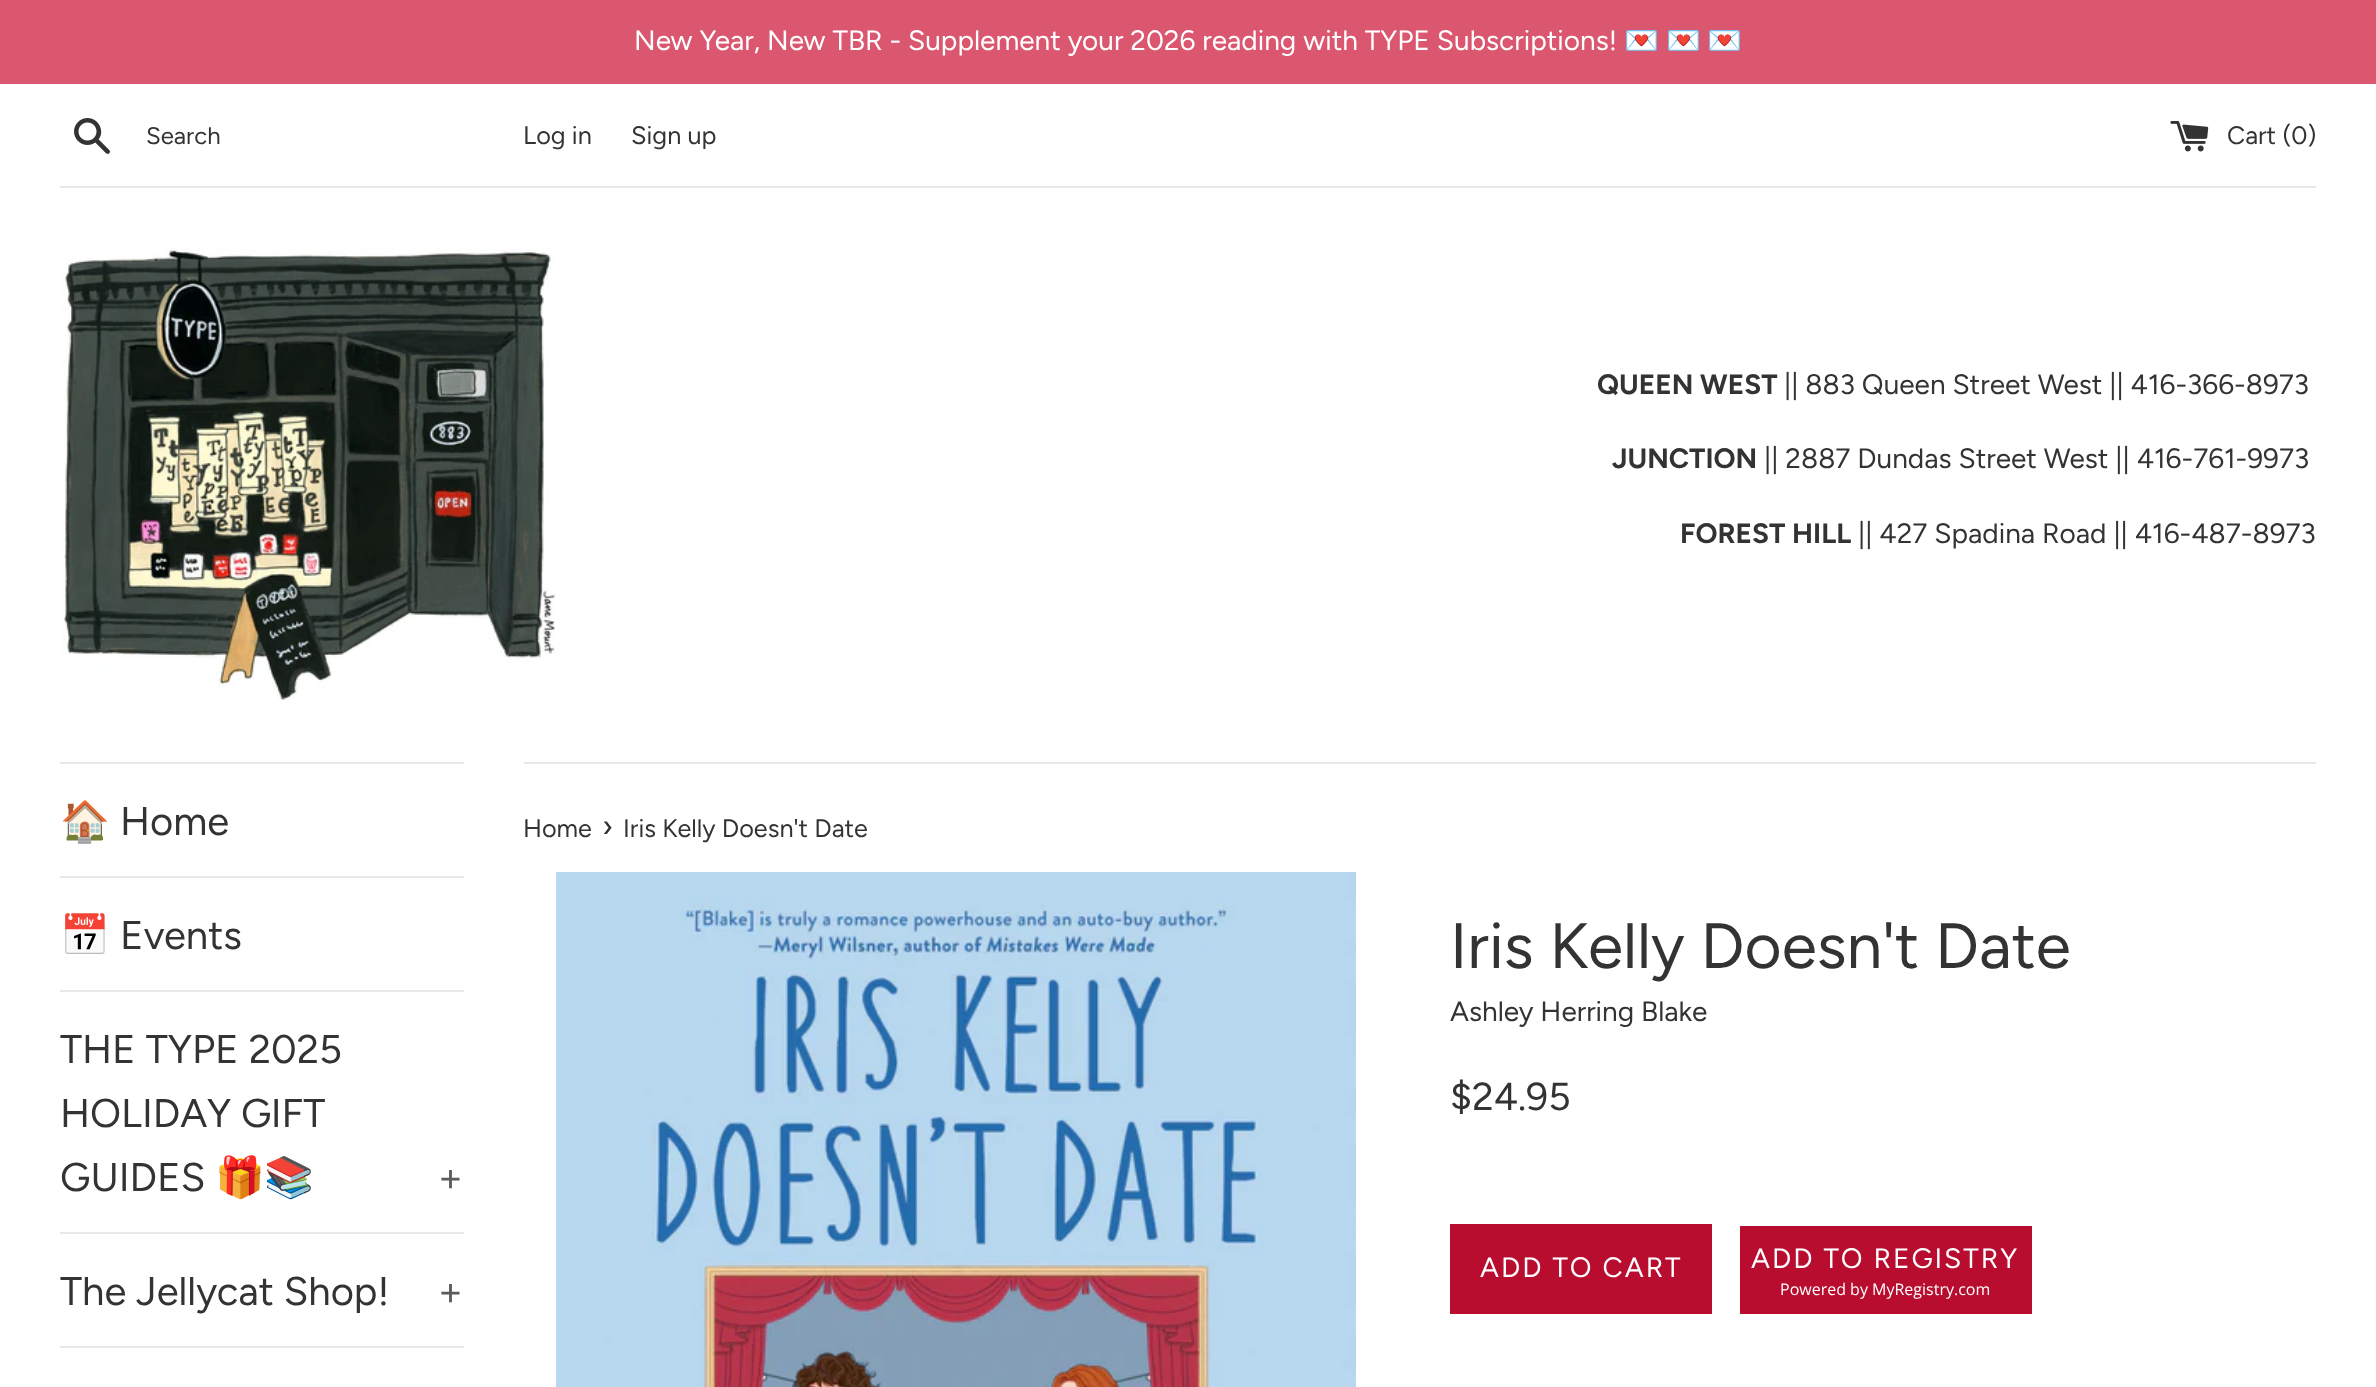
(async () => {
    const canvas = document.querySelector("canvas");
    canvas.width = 2376;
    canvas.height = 1387;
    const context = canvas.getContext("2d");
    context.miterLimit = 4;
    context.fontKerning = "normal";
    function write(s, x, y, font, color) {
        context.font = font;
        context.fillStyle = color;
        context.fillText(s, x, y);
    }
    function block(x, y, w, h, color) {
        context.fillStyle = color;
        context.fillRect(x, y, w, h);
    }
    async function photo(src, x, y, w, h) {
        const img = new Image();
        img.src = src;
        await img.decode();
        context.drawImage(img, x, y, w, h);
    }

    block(0, 0, 2376, 1387, "rgb(255, 255, 255)");
    block(0, 0, 2376, 84, "rgb(219, 87, 112)");
    write("New Year, New TBR - Supplement your 2026 reading with TYPE Subscriptions!", 634, 50, "28px Figtree", "rgb(255, 255, 255)");
    write("💌", 1624, 50, "28px Noto Color Emoji", "rgb(255, 255, 255)");
    write("💌", 1666, 50, "28px Noto Color Emoji", "rgb(255, 255, 255)");
    write("💌", 1707, 50, "28px Noto Color Emoji", "rgb(255, 255, 255)");
    await photo("media/1.png", 74, 118, 36, 36);
    write("Search", 146, 144, "24px Figtree", "rgb(51, 51, 51)");
    write("Log in", 523, 144, "25.25px Figtree", "rgb(51, 51, 51)");
    write("Sign up", 631, 144, "25.25px Figtree", "rgb(51, 51, 51)");
    await photo("media/2.png", 2170, 121, 39, 31);
    write("Cart (0)", 2227, 144, "25.25px Figtree", "rgb(51, 51, 51)");
    block(60, 186, 2256, 2, "rgb(232, 232, 232)");
    await photo("media/3.png", 60, 248, 495, 453);
    write("QUEEN WEST", 1597, 394, "bold 28px Figtree", "rgb(51, 51, 51)");
    write("|| 883 Queen Street West || 416-366-8973", 1784, 394, "28px Figtree", "rgb(51, 51, 51)");
    write("JUNCTION", 1612, 468, "bold 28px Figtree", "rgb(51, 51, 51)");
    write("|| 2887 Dundas Street West || 416-761-9973", 1764, 468, "28px Figtree", "rgb(51, 51, 51)");
    write("FOREST HILL", 1680, 543, "bold 28px Figtree", "rgb(51, 51, 51)");
    write("|| 427 Spadina Road || 416-487-8973", 1858, 543, "28px Figtree", "rgb(51, 51, 51)");
    block(60, 762, 404, 2, "rgb(232, 232, 232)");
    block(60, 876, 404, 2, "rgb(232, 232, 232)");
    write("🏠", 60, 835, "40px Noto Color Emoji", "rgb(51, 51, 51)");
    write("Home", 120, 835, "40px Figtree", "rgb(51, 51, 51)");
    block(60, 990, 404, 2, "rgb(232, 232, 232)");
    write("📅", 60, 949, "40px Noto Color Emoji", "rgb(51, 51, 51)");
    write("Events", 120, 949, "40px Figtree", "rgb(51, 51, 51)");
    block(60, 1232, 404, 2, "rgb(232, 232, 232)");
    write("THE TYPE 2025", 60, 1063, "40px Figtree", "rgb(51, 51, 51)");
    write("HOLIDAY GIFT", 60, 1127, "40px Figtree", "rgb(51, 51, 51)");
    write("GUIDES", 60, 1191, "40px Figtree", "rgb(51, 51, 51)");
    write("🎁📚", 215, 1191, "40px Noto Color Emoji", "rgb(51, 51, 51)");
    write("+", 438, 1191, "40px Figtree", "rgb(92, 92, 92)");
    block(60, 1346, 404, 2, "rgb(232, 232, 232)");
    write("The Jellycat Shop!", 60, 1305, "40px Figtree", "rgb(51, 51, 51)");
    write("+", 438, 1305, "40px Figtree", "rgb(92, 92, 92)");
    block(524, 762, 1792, 2, "rgb(232, 232, 232)");
    write("Home", 523, 837, "25.25px Figtree", "rgb(51, 51, 51)");
    write("›", 602, 837, "31px Figtree", "rgb(51, 51, 51)");
    write("Iris Kelly Doesn't Date", 623, 837, "25.25px Figtree", "rgb(51, 51, 51)");
    await photo("media/4.png", 556, 872, 800, 515);
    write("Iris Kelly Doesn't Date", 1450, 968, "64px Figtree", "rgb(51, 51, 51)");
    write("Ashley Herring Blake", 1450, 1021, "28px Figtree", "rgb(51, 51, 51)");
    write("$24.95", 1450, 1110, "39px Figtree", "rgb(51, 51, 51)");
    block(1450, 1224, 262, 90, "rgb(184, 13, 46)");
    context.letterSpacing = "2px";
    write("ADD TO CART", 1480, 1277, "28px Figtree", "rgb(255, 255, 255)");
    block(1740, 1226, 292, 88, "rgb(184, 13, 46)");
    write("ADD TO REGISTRY", 1751, 1268, "28px Figtree", "rgb(255, 255, 255)");
    context.letterSpacing = "0px";
    write("Powered by MyRegistry.com", 1780, 1295, "16px Open Sans", "rgb(255, 255, 255)");
})();
